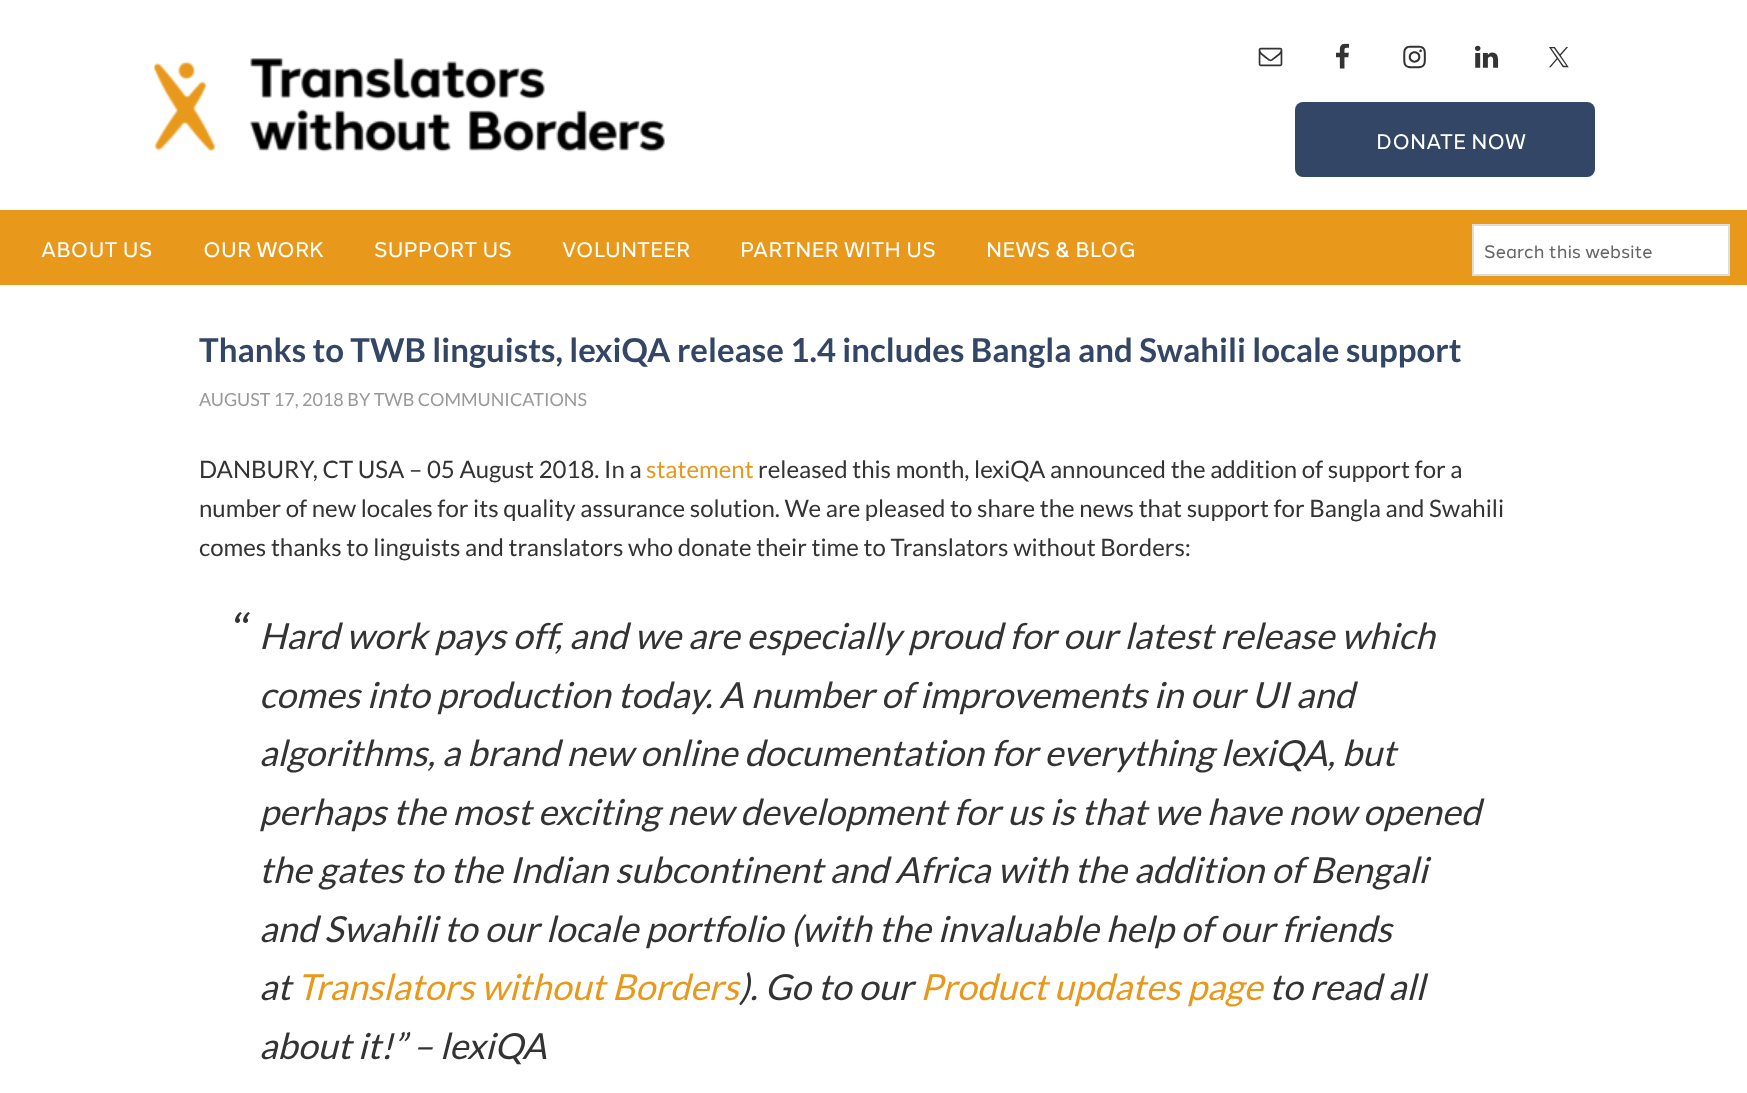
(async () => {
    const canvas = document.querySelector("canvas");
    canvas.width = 1747;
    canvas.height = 1093;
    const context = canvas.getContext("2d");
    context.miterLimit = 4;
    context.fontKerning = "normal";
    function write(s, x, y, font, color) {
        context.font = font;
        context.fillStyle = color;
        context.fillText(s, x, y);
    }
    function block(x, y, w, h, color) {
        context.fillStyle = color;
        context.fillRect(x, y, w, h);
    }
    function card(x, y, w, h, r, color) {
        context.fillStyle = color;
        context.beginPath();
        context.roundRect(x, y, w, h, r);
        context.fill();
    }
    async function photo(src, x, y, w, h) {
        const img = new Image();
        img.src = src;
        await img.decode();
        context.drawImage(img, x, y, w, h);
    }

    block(0, 0, 1747, 1093, "rgb(255, 255, 255)");
    await photo("media/1.png", 154, 58, 511, 94);
    await photo("media/2.png", 1258, 47, 25, 20);
    await photo("media/3.png", 1336, 43, 13, 26);
    await photo("media/4.png", 1403, 45, 23, 24);
    await photo("media/5.png", 1475, 45, 24, 23);
    await photo("media/6.png", 1549, 47, 20, 21);
    card(1295, 102, 300, 75, 8, "rgb(51, 70, 102)");
    write("DONATE NOW", 1376, 149, "21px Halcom", "rgb(255, 255, 255)");
    block(0, 210, 1747, 75, "rgb(232, 153, 28)");
    write("ABOUT US", 41, 257, "21px Halcom", "rgb(255, 255, 255)");
    write("OUR WORK", 203, 257, "21px Halcom", "rgb(255, 255, 255)");
    write("SUPPORT US", 374, 257, "21px Halcom", "rgb(255, 255, 255)");
    write("VOLUNTEER", 562, 257, "21px Halcom", "rgb(255, 255, 255)");
    write("PARTNER WITH US", 740, 257, "21px Halcom", "rgb(255, 255, 255)");
    write("NEWS & BLOG", 986, 257, "21px Halcom", "rgb(255, 255, 255)");
    context.beginPath();
    context.rect(1473, 225, 256, 50);
    context.fill();
    context.strokeStyle = "rgb(221, 221, 221)";
    context.lineWidth = 2;
    context.stroke();
    write("Search this website", 1484, 258, "18px Halcom", "rgb(102, 102, 102)");
    write("Thanks to TWB linguists, lexiQA release 1.4 includes Bangla and Swahili locale support", 199, 362, "bold 33px Lato", "rgb(51, 70, 102)");
    write("AUGUST 17, 2018 BY TWB COMMUNICATIONS", 199, 406, "18px Lato", "rgb(153, 153, 153)");
    write("DANBURY, CT USA – 05 August 2018. In a", 199, 478, "24px Lato", "rgb(51, 51, 51)");
    write("statement", 646, 478, "24px Lato", "rgb(232, 153, 28)");
    write("released this month, lexiQA announced the addition of support for a", 758, 478, "24px Lato", "rgb(51, 51, 51)");
    write("number of new locales for its quality assurance solution. We are pleased to share the news that support for Bangla and Swahili", 199, 517, "24px Lato", "rgb(51, 51, 51)");
    write("comes thanks to linguists and translators who donate their time to Translators without Borders:", 199, 556, "24px Lato", "rgb(51, 51, 51)");
    write("“", 229, 646, "italic 45px Halcom", "rgb(51, 51, 51)");
    write("Hard work pays off, and we are especially proud for our latest release which", 259, 649, "italic 36px Lato", "rgb(51, 51, 51)");
    write("comes into production today. A number of improvements in our UI and", 259, 708, "italic 36px Lato", "rgb(51, 51, 51)");
    write("algorithms, a brand new online documentation for everything lexiQA, but", 259, 766, "italic 36px Lato", "rgb(51, 51, 51)");
    write("perhaps the most exciting new development for us is that we have now opened", 259, 825, "italic 36px Lato", "rgb(51, 51, 51)");
    write("the gates to the Indian subcontinent and Africa with the addition of Bengali", 259, 883, "italic 36px Lato", "rgb(51, 51, 51)");
    write("and Swahili to our locale portfolio (with the invaluable help of our friends", 259, 942, "italic 36px Lato", "rgb(51, 51, 51)");
    write("at", 259, 1000, "italic 36px Lato", "rgb(51, 51, 51)");
    write("Translators without Borders", 297, 1000, "italic 36px Lato", "rgb(232, 153, 28)");
    write("). Go to our", 739, 1000, "italic 36px Lato", "rgb(51, 51, 51)");
    write("Product updates page", 920, 1000, "italic 36px Lato", "rgb(232, 153, 28)");
    write("to read all", 1269, 1000, "italic 36px Lato", "rgb(51, 51, 51)");
    write("about it!” – lexiQA", 259, 1059, "italic 36px Lato", "rgb(51, 51, 51)");
})();
